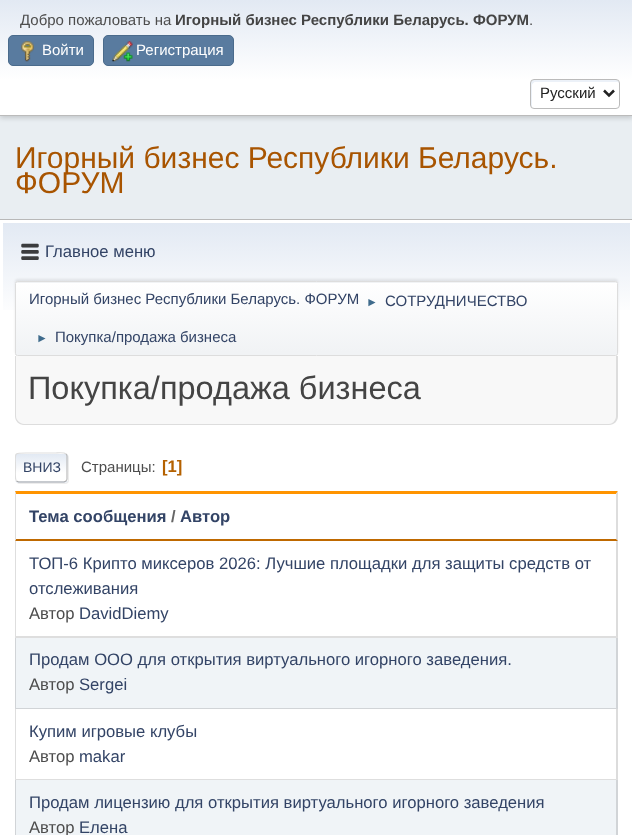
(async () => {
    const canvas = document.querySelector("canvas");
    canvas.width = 632;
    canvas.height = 835;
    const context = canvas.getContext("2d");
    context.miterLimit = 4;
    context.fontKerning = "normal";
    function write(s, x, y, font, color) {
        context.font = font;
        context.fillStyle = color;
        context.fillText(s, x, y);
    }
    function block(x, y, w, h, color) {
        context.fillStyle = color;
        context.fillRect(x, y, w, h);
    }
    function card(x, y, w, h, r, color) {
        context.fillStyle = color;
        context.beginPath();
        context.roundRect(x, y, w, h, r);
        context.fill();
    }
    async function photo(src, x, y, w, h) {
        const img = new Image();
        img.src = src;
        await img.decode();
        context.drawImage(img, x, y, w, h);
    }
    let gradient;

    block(0, 0, 632, 835, "rgb(233, 238, 242)");
    context.fillStyle = "rgba(0, 0, 0, 0.16)";
    context.filter = "blur(2.5px)";
    context.beginPath();
    context.rect(0, 1, 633, 117);
    context.fill();
    context.filter = "none";
    gradient = context.createLinearGradient(316, 0, 316, 115);
    gradient.addColorStop(0, "rgb(226, 233, 243)");
    gradient.addColorStop(0.7, "rgb(255, 255, 255)");
    context.fillStyle = gradient;
    context.fillRect(0, 0, 632, 115);
    block(0, 115, 632, 1, "rgb(187, 187, 187)");
    write("Добро пожаловать на", 20, 25, "15px Liberation Sans", "rgb(77, 77, 77)");
    write("Игорный бизнес Республики Беларусь. ФОРУМ", 175, 25, "bold 15px Liberation Sans", "rgb(68, 68, 68)");
    write(".", 529, 25, "15px Liberation Sans", "rgb(77, 77, 77)");
    context.fillStyle = "rgb(89, 123, 159)";
    context.beginPath();
    context.roundRect(8.5, 35.5, 85, 30, 4.5);
    context.fill();
    context.strokeStyle = "rgb(74, 107, 140)";
    context.stroke();
    await photo("media/1.png", 21, 41, 13, 21);
    write("Войти", 42, 55, "15px Liberation Sans", "rgb(255, 255, 255)");
    context.fillStyle = "rgb(89, 123, 159)";
    context.beginPath();
    context.roundRect(103.5, 35.5, 130, 30, 4.5);
    context.fill();
    context.stroke();
    await photo("media/2.png", 112, 41, 21, 21);
    write("Регистрация", 136, 55, "15px Liberation Sans", "rgb(255, 255, 255)");
    context.fillStyle = "rgb(236, 241, 248)";
    context.beginPath();
    context.moveTo(535, 82);
    context.lineTo(618, 82);
    context.lineTo(619, 83);
    context.bezierCurveTo(619, 77, 608, 80, 603, 80);
    context.lineTo(547, 80);
    context.bezierCurveTo(528, 80, 531, 77, 531, 94);
    context.bezierCurveTo(531, 96, 530, 106, 532, 108);
    context.lineTo(532, 85);
    context.bezierCurveTo(532, 84, 534, 82, 535, 82);
    context.closePath();
    context.fill();
    context.beginPath();
    context.roundRect(530.5, 79.5, 89, 29, 3.5);
    context.strokeStyle = "rgb(187, 187, 187)";
    context.stroke();
    context.beginPath();
    context.moveTo(604, 90.5);
    context.lineTo(609, 95.5);
    context.lineTo(614, 90.5);
    context.strokeStyle = "rgb(34, 34, 34)";
    context.lineWidth = 2.5;
    context.stroke();
    write("Русский", 540, 98, "15px Liberation Sans", "rgb(34, 34, 34)");
    write("Игорный бизнес Республики Беларусь.", 15, 168, "30px Liberation Sans", "rgb(168, 84, 0)");
    write("ФОРУМ", 15, 193, "30px Liberation Sans", "rgb(168, 84, 0)");
    block(0, 220, 632, 615, "rgb(255, 255, 255)");
    block(0, 219, 632, 1, "rgb(184, 184, 184)");
    gradient = context.createLinearGradient(316, 222, 316, 359);
    gradient.addColorStop(0, "rgb(226, 233, 243)");
    gradient.addColorStop(0.7, "rgb(255, 255, 255)");
    context.fillStyle = gradient;
    context.fillRect(3, 223, 627, 87);
    await photo("media/3.png", 21, 243, 18, 17);
    write("Главное меню", 45, 257, "16.65px Liberation Sans", "rgb(51, 68, 102)");
    context.fillStyle = "rgba(0, 0, 0, 0.08)";
    context.filter = "blur(1px)";
    context.beginPath();
    context.roundRect(15, 279, 603, 75, 2.5);
    context.fill();
    context.filter = "none";
    context.save();
    context.beginPath();
    context.roundRect(15, 281, 603, 75, 2.5);
    context.clip();
    gradient = context.createLinearGradient(316, 210, 316, 283);
    gradient.addColorStop(0, "rgb(255, 255, 255)");
    gradient.addColorStop(0.95, "rgb(241, 243, 245)");
    context.fillStyle = gradient;
    context.fillRect(15, 281, 603, 2);
    context.restore();
    gradient = context.createLinearGradient(316, 282, 316, 355);
    gradient.addColorStop(0, "rgb(255, 255, 255)");
    gradient.addColorStop(0.95, "rgb(241, 243, 245)");
    context.fillStyle = gradient;
    context.fillRect(15, 283, 603, 72);
    context.beginPath();
    context.roundRect(15.5, 281.5, 602, 74, 2);
    context.strokeStyle = "rgb(221, 221, 221)";
    context.lineWidth = 1;
    context.stroke();
    write("Игорный бизнес Республики Беларусь. ФОРУМ", 29, 304, "15px Liberation Sans", "rgb(51, 68, 102)");
    write("►", 366, 306, "12px Liberation Sans", "rgb(63, 107, 140)");
    write("СОТРУДНИЧЕСТВО", 385, 306, "15px Liberation Sans", "rgb(51, 68, 102)");
    write("►", 36, 342, "12px Liberation Sans", "rgb(63, 107, 140)");
    write("Покупка/продажа бизнеса", 55, 342, "15px Liberation Sans", "rgb(51, 68, 102)");
    context.fillStyle = "rgb(248, 248, 248)";
    context.beginPath();
    context.roundRect(15, 356, 603, 69, [0, 0, 9, 9]);
    context.fill();
    context.fillStyle = "rgb(221, 221, 221)";
    context.beginPath();
    context.moveTo(15, 356);
    context.lineTo(618, 356);
    context.lineTo(618, 416);
    context.bezierCurveTo(618, 421, 614, 425, 609, 425);
    context.lineTo(24, 425);
    context.bezierCurveTo(19, 425, 15, 421, 15, 416);
    context.closePath();
    context.moveTo(16, 356);
    context.lineTo(616, 356);
    context.lineTo(616, 416);
    context.bezierCurveTo(616, 420, 613, 424, 609, 424);
    context.lineTo(24, 424);
    context.bezierCurveTo(20, 424, 16, 420, 16, 416);
    context.closePath();
    context.fill("evenodd");
    write("Покупка/продажа бизнеса", 28, 399, "32.5px Liberation Sans", "rgb(68, 68, 68)");
    context.fillStyle = "rgba(221, 221, 221, 0.57)";
    context.filter = "blur(0.5px)";
    context.beginPath();
    context.roundRect(16, 454, 53, 30, 4);
    context.fill();
    context.filter = "none";
    card(15, 453, 53, 30, 4, "rgb(255, 255, 255)");
    context.save();
    context.beginPath();
    context.roundRect(15, 453, 53, 30, 4);
    context.clip();
    gradient = context.createLinearGradient(41, 454, 41, 481);
    gradient.addColorStop(0, "rgb(226, 233, 243)");
    gradient.addColorStop(0.7, "rgb(255, 255, 255)");
    context.fillStyle = gradient;
    context.fillRect(15, 454, 53, 27);
    gradient = context.createLinearGradient(41, 481, 41, 509);
    gradient.addColorStop(0, "rgb(226, 233, 243)");
    gradient.addColorStop(0.7, "rgb(255, 255, 255)");
    context.fillStyle = gradient;
    context.fillRect(15, 481, 53, 2);
    context.restore();
    context.beginPath();
    context.moveTo(66, 454);
    context.bezierCurveTo(66.5, 454.5, 67, 455.5, 67, 456);
    context.lineTo(67, 479);
    context.bezierCurveTo(67, 479.5, 66.5, 480.5, 66, 481);
    context.strokeStyle = "rgb(187, 187, 187)";
    context.lineWidth = 1.2;
    context.stroke();
    context.beginPath();
    context.moveTo(66, 481);
    context.lineTo(64, 482);
    context.lineTo(18.5, 482);
    context.lineTo(16.5, 481);
    context.strokeStyle = "rgb(170, 170, 170)";
    context.stroke();
    context.save();
    context.beginPath();
    context.rect(15, 444, 603, 47);
    context.clip();
    context.beginPath();
    context.moveTo(16.5, 481);
    context.bezierCurveTo(14.5, 479, 15.5, 470, 15.5, 467.5);
    context.bezierCurveTo(15.5, 453, 12.5, 453, 26, 453);
    context.lineTo(56, 453);
    context.bezierCurveTo(57, 453, 64, 452, 66, 454);
    context.strokeStyle = "rgb(221, 221, 221)";
    context.stroke();
    context.restore();
    write("ВНИЗ", 23, 472, "14px Liberation Sans", "rgb(51, 68, 102)");
    write("Страницы:", 81, 472, "15px Liberation Sans", "rgb(77, 77, 77)");
    write("[1]", 162, 472, "bold 16.65px Liberation Sans", "rgb(180, 97, 0)");
    context.fillStyle = "rgb(255, 148, 0)";
    context.beginPath();
    context.moveTo(15, 491);
    context.lineTo(618, 491);
    context.lineTo(616, 494);
    context.lineTo(16, 494);
    context.closePath();
    context.fill();
    context.fillStyle = "rgb(221, 221, 221)";
    context.beginPath();
    context.moveTo(618, 491);
    context.lineTo(618, 541);
    context.lineTo(616, 539);
    context.lineTo(616, 494);
    context.closePath();
    context.fill();
    context.fillStyle = "rgb(191, 105, 0)";
    context.beginPath();
    context.moveTo(618, 541);
    context.lineTo(15, 541);
    context.lineTo(16, 539);
    context.lineTo(616, 539);
    context.closePath();
    context.fill();
    context.fillStyle = "rgb(221, 221, 221)";
    context.beginPath();
    context.moveTo(15, 541);
    context.lineTo(15, 491);
    context.lineTo(16, 494);
    context.lineTo(16, 539);
    context.closePath();
    context.fill();
    write("Тема сообщения", 29, 522, "bold 16.65px Liberation Sans", "rgb(51, 68, 102)");
    write("/", 171, 522, "bold 16.65px Liberation Sans", "rgb(102, 102, 102)");
    write("Автор", 180, 522, "bold 16.65px Liberation Sans", "rgb(51, 68, 102)");
    context.fillStyle = "rgb(220, 220, 220)";
    context.beginPath();
    context.moveTo(618, 541);
    context.lineTo(618, 638);
    context.lineTo(616, 636);
    context.lineTo(616, 541);
    context.closePath();
    context.fill();
    context.fillStyle = "rgba(0, 0, 0, 0.13)";
    context.beginPath();
    context.moveTo(618, 638);
    context.lineTo(15, 638);
    context.lineTo(16, 636);
    context.lineTo(616, 636);
    context.closePath();
    context.fill();
    context.beginPath();
    context.moveTo(15, 638);
    context.lineTo(15, 541);
    context.lineTo(16, 541);
    context.lineTo(16, 636);
    context.closePath();
    context.fill();
    write("ТОП-6 Крипто миксеров 2026: Лучшие площадки для защиты средств от", 29, 569, "16.65px Liberation Sans", "rgb(51, 68, 102)");
    write("отслеживания", 29, 594, "16.65px Liberation Sans", "rgb(51, 68, 102)");
    write("Автор", 29, 619, "16.65px Liberation Sans", "rgb(77, 77, 77)");
    write("DavidDiemy", 79, 619, "16.65px Liberation Sans", "rgb(51, 68, 102)");
    block(15, 638, 603, 71, "rgb(240, 244, 247)");
    context.fillStyle = "rgb(209, 212, 215)";
    context.beginPath();
    context.moveTo(618, 638);
    context.lineTo(618, 709);
    context.lineTo(616, 708);
    context.lineTo(616, 638);
    context.closePath();
    context.fill();
    context.fillStyle = "rgba(0, 0, 0, 0.13)";
    context.beginPath();
    context.moveTo(618, 709);
    context.lineTo(15, 709);
    context.lineTo(16, 708);
    context.lineTo(616, 708);
    context.closePath();
    context.fill();
    context.beginPath();
    context.moveTo(15, 709);
    context.lineTo(15, 638);
    context.lineTo(16, 638);
    context.lineTo(16, 708);
    context.closePath();
    context.fill();
    write("Продам ООО для открытия виртуального игорного заведения.", 29, 665, "16.65px Liberation Sans", "rgb(51, 68, 102)");
    write("Автор", 29, 690, "16.65px Liberation Sans", "rgb(77, 77, 77)");
    write("Sergei", 79, 690, "16.65px Liberation Sans", "rgb(51, 68, 102)");
    context.fillStyle = "rgb(220, 220, 220)";
    context.beginPath();
    context.moveTo(618, 709);
    context.lineTo(618, 780);
    context.lineTo(616, 779);
    context.lineTo(616, 709);
    context.closePath();
    context.fill();
    context.fillStyle = "rgba(0, 0, 0, 0.13)";
    context.beginPath();
    context.moveTo(618, 780);
    context.lineTo(15, 780);
    context.lineTo(16, 779);
    context.lineTo(616, 779);
    context.closePath();
    context.fill();
    context.beginPath();
    context.moveTo(15, 780);
    context.lineTo(15, 709);
    context.lineTo(16, 709);
    context.lineTo(16, 779);
    context.closePath();
    context.fill();
    write("Купим игровые клубы", 29, 737, "16.65px Liberation Sans", "rgb(51, 68, 102)");
    write("Автор", 29, 762, "16.65px Liberation Sans", "rgb(77, 77, 77)");
    write("makar", 79, 762, "16.65px Liberation Sans", "rgb(51, 68, 102)");
    block(16, 780, 600, 55, "rgb(240, 244, 247)");
    context.fillStyle = "rgb(209, 212, 215)";
    context.beginPath();
    context.moveTo(618, 780);
    context.lineTo(618, 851);
    context.lineTo(616, 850);
    context.lineTo(616, 780);
    context.closePath();
    context.fill();
    context.beginPath();
    context.moveTo(15, 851);
    context.lineTo(15, 780);
    context.lineTo(16, 780);
    context.lineTo(16, 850);
    context.closePath();
    context.fill();
    write("Продам лицензию для открытия виртуального игорного заведения", 29, 808, "16.65px Liberation Sans", "rgb(51, 68, 102)");
    write("Автор", 29, 833, "16.65px Liberation Sans", "rgb(77, 77, 77)");
    write("Елена", 79, 833, "16.65px Liberation Sans", "rgb(51, 68, 102)");
})();
